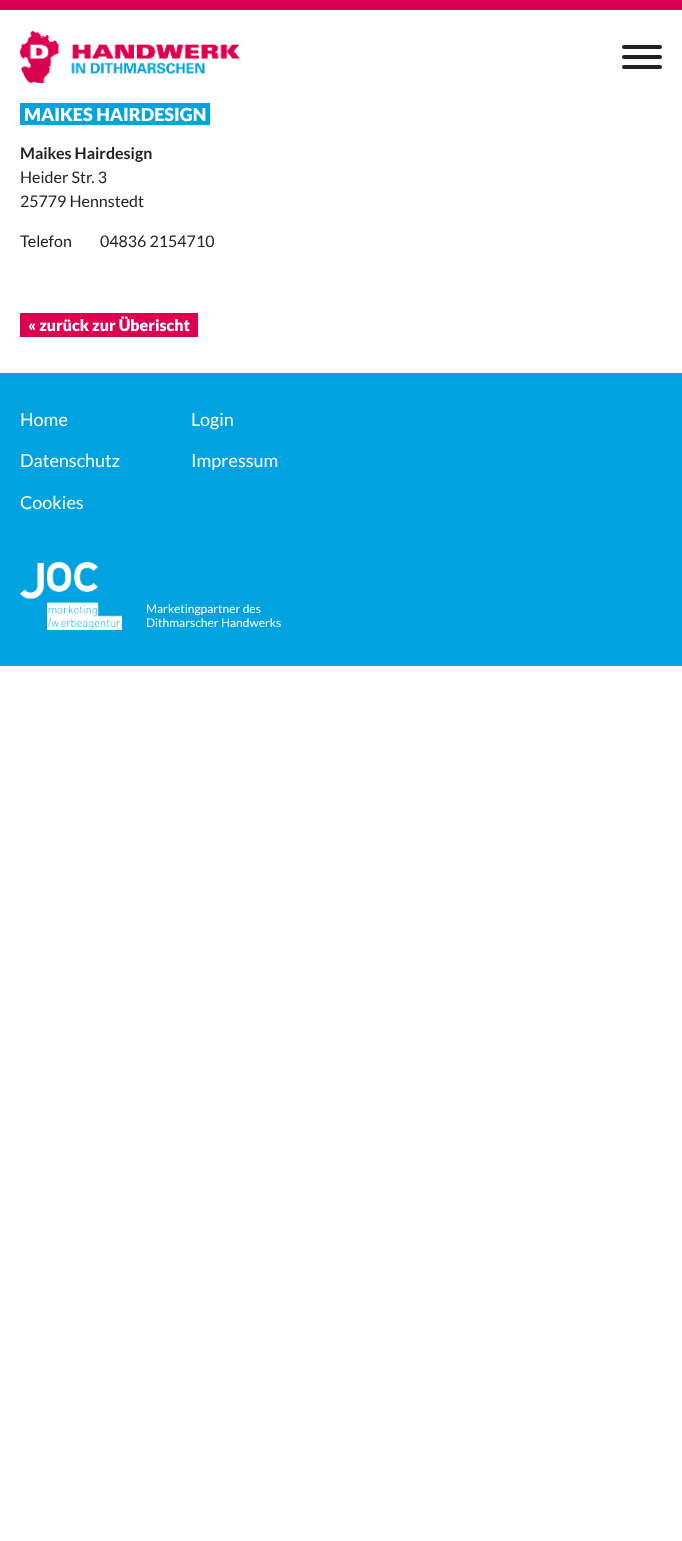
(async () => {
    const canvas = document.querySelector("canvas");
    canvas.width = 682;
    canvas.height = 1541;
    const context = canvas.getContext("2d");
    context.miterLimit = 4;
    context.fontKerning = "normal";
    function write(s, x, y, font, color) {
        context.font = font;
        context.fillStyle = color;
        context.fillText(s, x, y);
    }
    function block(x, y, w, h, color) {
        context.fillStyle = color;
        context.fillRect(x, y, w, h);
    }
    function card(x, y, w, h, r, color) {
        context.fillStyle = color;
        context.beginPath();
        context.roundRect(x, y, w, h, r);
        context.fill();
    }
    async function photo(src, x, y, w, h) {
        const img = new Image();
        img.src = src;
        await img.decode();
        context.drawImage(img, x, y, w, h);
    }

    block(0, 0, 682, 1541, "rgb(255, 255, 255)");
    block(0, 0, 682, 10, "rgb(220, 0, 80)");
    await photo("media/1.png", 20, 31, 220, 52);
    card(622, 55, 40, 4, 2, "rgb(33, 34, 35)");
    card(622, 45, 40, 4, 2, "rgb(33, 34, 35)");
    card(622, 65, 40, 4, 2, "rgb(33, 34, 35)");
    block(20, 103, 190, 22, "rgb(0, 162, 224)");
    write("MAIKES HAIRDESIGN", 24, 121, "900 18px Lato", "rgb(255, 255, 255)");
    write("Maikes Hairdesign", 20, 159, "bold 16px Lato", "rgb(33, 34, 35)");
    write("Heider Str. 3", 20, 183, "16px Lato", "rgb(33, 34, 35)");
    write("25779 Hennstedt", 20, 207, "16px Lato", "rgb(33, 34, 35)");
    write("Telefon", 20, 247, "16px Lato", "rgb(33, 34, 35)");
    write("04836 2154710", 100, 247, "16px Lato", "rgb(33, 34, 35)");
    block(20, 313, 178, 24, "rgb(220, 0, 80)");
    write("« zurück zur Überischt", 28, 331, "900 16px Lato", "rgb(255, 255, 255)");
    block(0, 373, 682, 293, "rgb(0, 162, 224)");
    write("Home", 20, 426, "18px Lato", "rgb(255, 255, 255)");
    write("Login", 191, 426, "18px Lato", "rgb(255, 255, 255)");
    write("Datenschutz", 20, 467, "18px Lato", "rgb(255, 255, 255)");
    write("Impressum", 191, 467, "18px Lato", "rgb(255, 255, 255)");
    write("Cookies", 20, 509, "18px Lato", "rgb(255, 255, 255)");
    await photo("media/2.png", 20, 562, 102, 68);
    write("Marketingpartner des", 146, 613, "12px Lato", "rgb(255, 255, 255)");
    write("Dithmarscher Handwerks", 146, 627, "12px Lato", "rgb(255, 255, 255)");
})();
